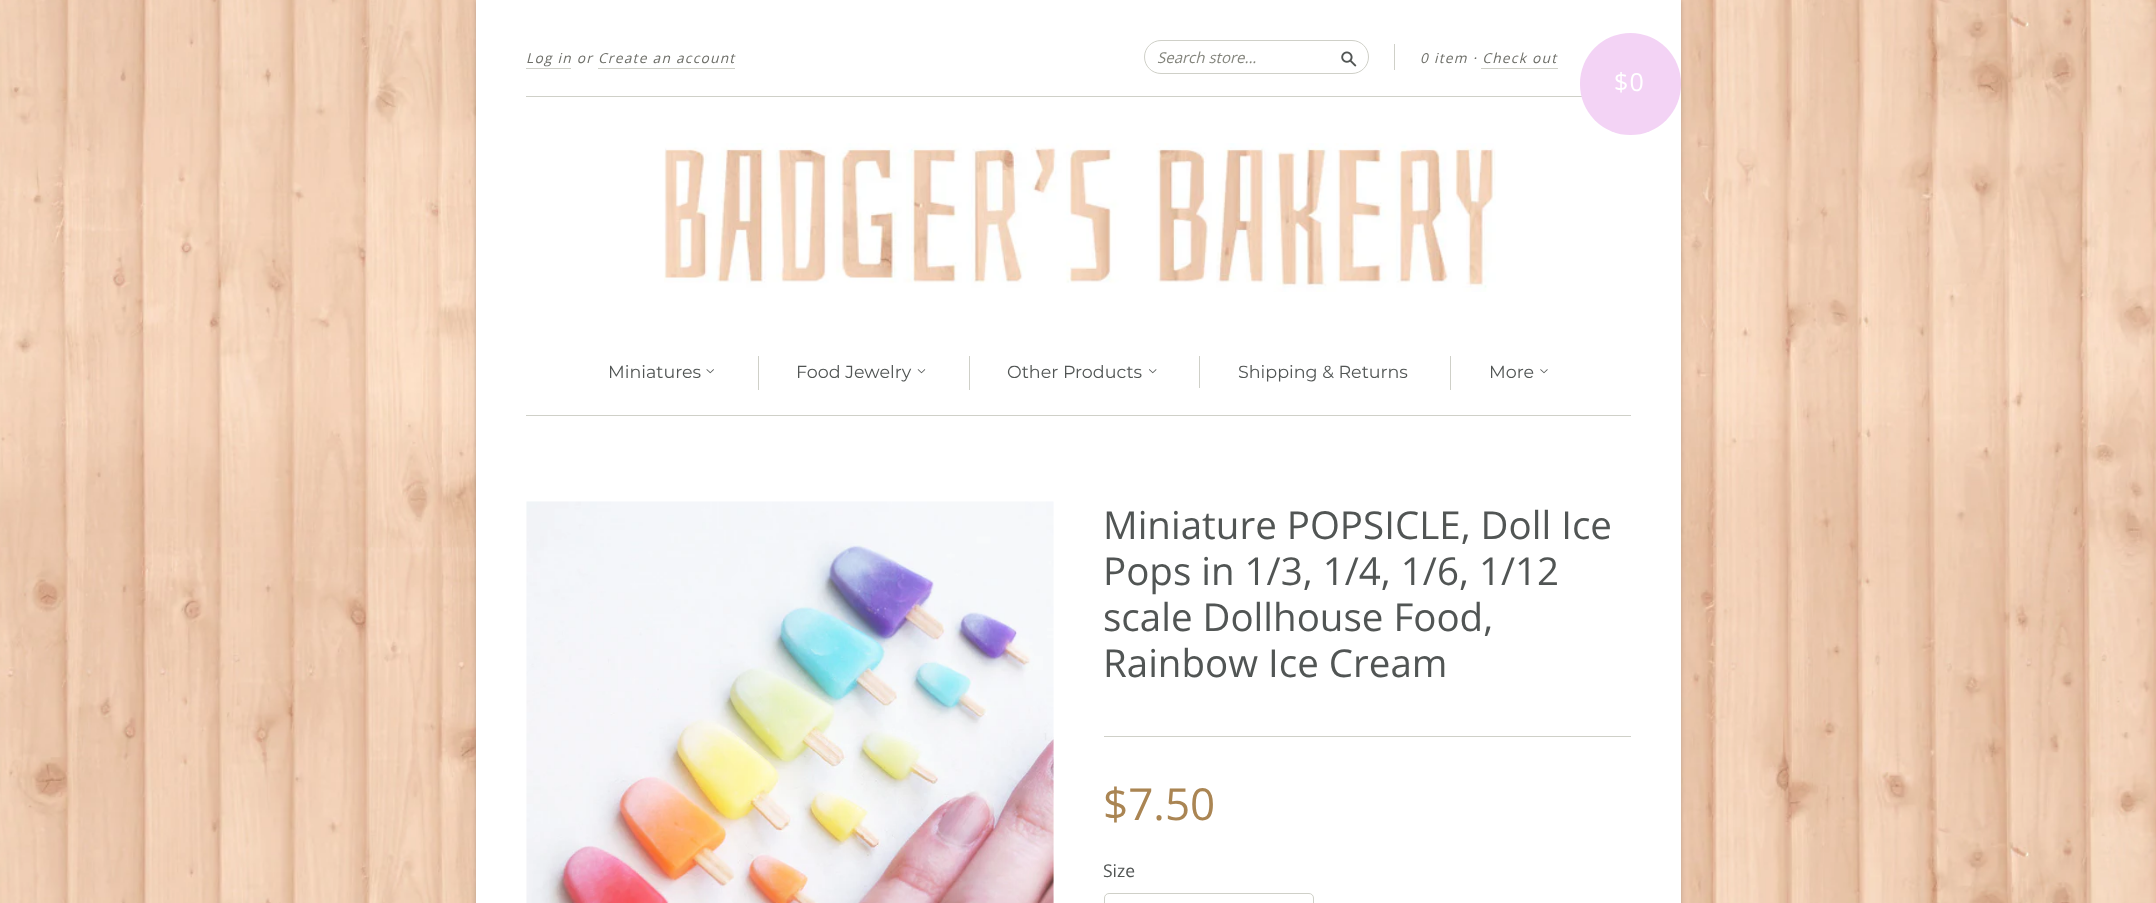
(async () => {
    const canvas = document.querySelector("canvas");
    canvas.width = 2156;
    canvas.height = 903;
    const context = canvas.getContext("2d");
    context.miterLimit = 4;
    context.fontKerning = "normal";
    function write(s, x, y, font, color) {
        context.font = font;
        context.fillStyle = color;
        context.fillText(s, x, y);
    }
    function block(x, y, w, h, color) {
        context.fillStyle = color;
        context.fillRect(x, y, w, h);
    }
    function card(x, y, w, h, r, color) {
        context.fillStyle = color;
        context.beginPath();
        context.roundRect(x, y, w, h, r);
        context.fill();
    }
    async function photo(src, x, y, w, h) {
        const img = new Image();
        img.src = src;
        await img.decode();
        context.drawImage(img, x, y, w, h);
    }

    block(0, 0, 2156, 903, "rgb(255, 255, 255)");
    await photo("media/1.png", 0, 0, 2156, 903);
    context.fillStyle = "rgba(0, 0, 0, 0.2)";
    context.filter = "blur(2.5px)";
    context.beginPath();
    context.rect(476, 0, 1205, 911);
    context.fill();
    context.filter = "none";
    block(476, 0, 1205, 903, "rgb(255, 255, 255)");
    block(526, 415, 1105, 1, "rgb(207, 208, 200)");
    block(526, 96, 1056, 1, "rgb(207, 208, 200)");
    context.letterSpacing = "1.25px";
    write("Log in or Create an account", 526, 63, "italic 13.75px Open Sans", "rgb(109, 110, 104)");
    block(526, 68, 45, 1, "rgb(207, 208, 200)");
    block(598, 68, 137, 1, "rgb(207, 208, 200)");
    context.beginPath();
    context.roundRect(1144.5, 40.5, 224, 33, 16.5);
    context.strokeStyle = "rgb(207, 208, 200)";
    context.stroke();
    context.letterSpacing = "0px";
    write("Search store...", 1157, 63, "italic 15px Open Sans", "rgb(132, 133, 125)");
    await photo("media/2.png", 1341, 51, 16, 16);
    block(1394, 44, 1, 26, "rgb(207, 208, 200)");
    context.letterSpacing = "1.25px";
    write("0 item · Check out", 1420, 63, "italic 13.75px Open Sans", "rgb(109, 110, 104)");
    block(1481, 68, 77, 1, "rgb(207, 208, 200)");
    card(1580, 33, 101, 102, 50.5, "rgb(243, 211, 245)");
    write("$0", 1614, 91, "25px Open Sans", "rgb(255, 255, 255)");
    await photo("media/3.png", 664, 143, 832, 149);
    context.letterSpacing = "0px";
    write("Miniatures", 608, 378, "100 17.5px Montserrat", "rgb(81, 85, 84)");
    await photo("media/4.png", 706, 369, 8, 5);
    block(758, 356, 1, 34, "rgb(207, 208, 200)");
    write("Food Jewelry", 796, 378, "100 17.5px Montserrat", "rgb(81, 85, 84)");
    await photo("media/5.png", 917, 369, 9, 5);
    block(969, 356, 1, 34, "rgb(207, 208, 200)");
    write("Other Products", 1007, 378, "100 17.5px Montserrat", "rgb(81, 85, 84)");
    await photo("media/6.png", 1149, 369, 8, 5);
    block(1199, 356, 1, 32, "rgb(207, 208, 200)");
    write("Shipping & Returns", 1238, 378, "100 17.5px Montserrat", "rgb(81, 85, 84)");
    block(1450, 356, 1, 34, "rgb(207, 208, 200)");
    write("More", 1489, 378, "100 17.5px Montserrat", "rgb(81, 85, 84)");
    await photo("media/7.png", 1540, 369, 8, 5);
    await photo("media/8.png", 526, 501, 528, 402);
    write("Miniature POPSICLE, Doll Ice", 1103, 539, "38.5px Open Sans", "rgb(81, 85, 84)");
    write("Pops in 1/3, 1/4, 1/6, 1/12", 1103, 585, "38.5px Open Sans", "rgb(81, 85, 84)");
    write("scale Dollhouse Food,", 1103, 631, "38.5px Open Sans", "rgb(81, 85, 84)");
    write("Rainbow Ice Cream", 1103, 677, "38.5px Open Sans", "rgb(81, 85, 84)");
    block(1104, 736, 527, 1, "rgb(207, 208, 200)");
    write("$7.50", 1103, 820, "44px Open Sans", "rgb(170, 133, 83)");
    write("Size", 1103, 877, "17.5px Open Sans", "rgb(81, 85, 84)");
    context.beginPath();
    context.roundRect(1104.5, 893.5, 209, 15, 4.5);
    context.stroke();
})();
